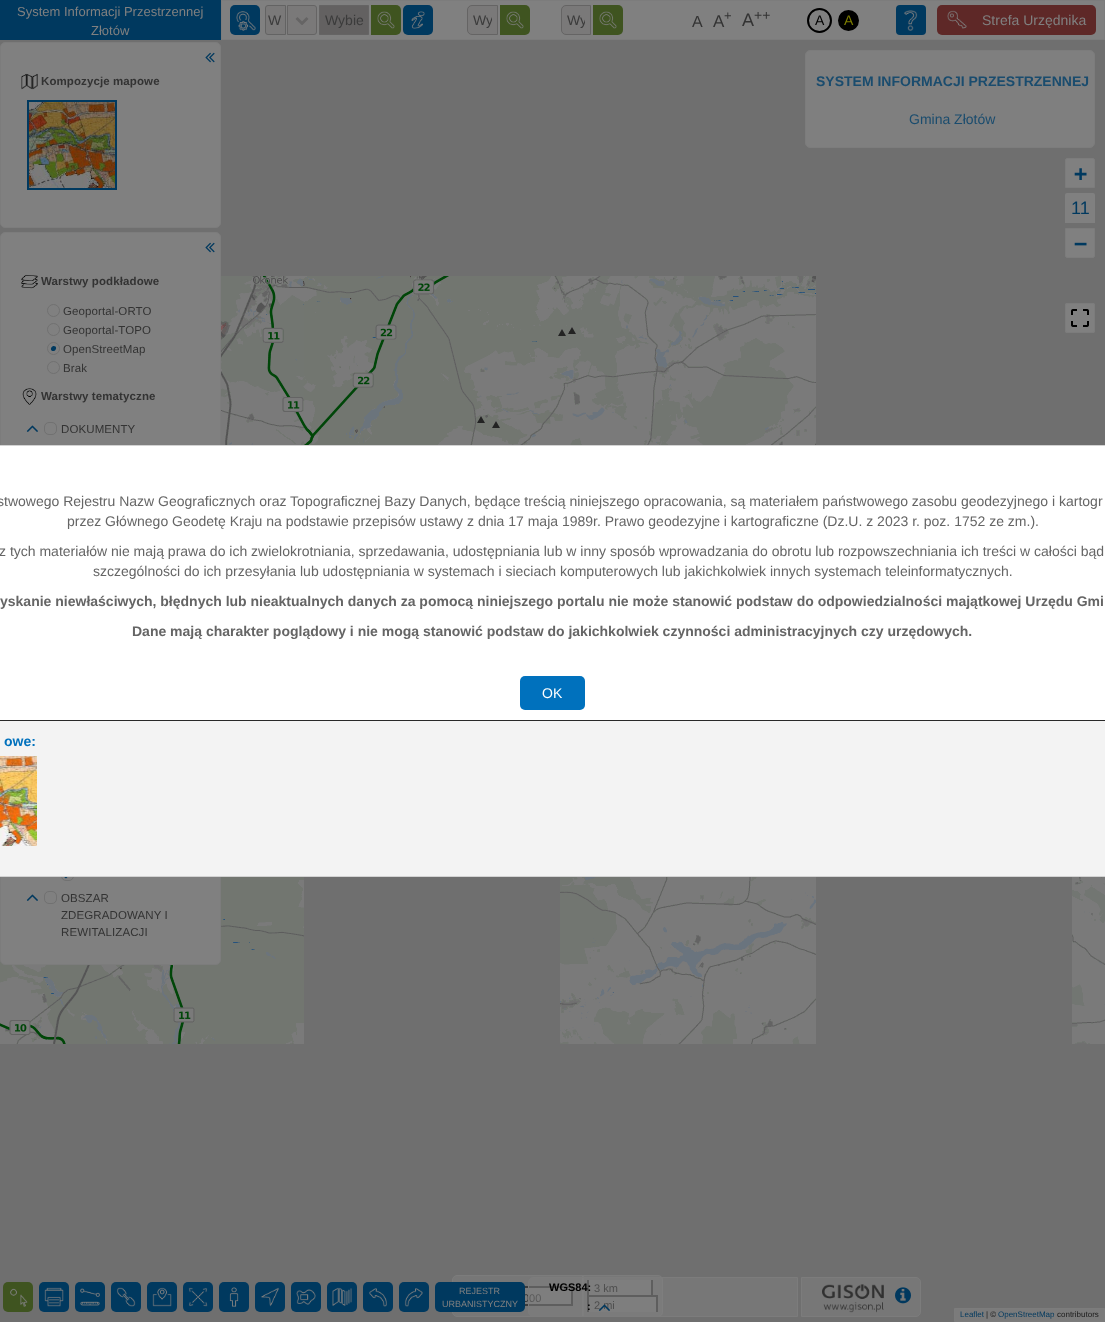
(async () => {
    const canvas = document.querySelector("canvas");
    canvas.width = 1105;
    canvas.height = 1322;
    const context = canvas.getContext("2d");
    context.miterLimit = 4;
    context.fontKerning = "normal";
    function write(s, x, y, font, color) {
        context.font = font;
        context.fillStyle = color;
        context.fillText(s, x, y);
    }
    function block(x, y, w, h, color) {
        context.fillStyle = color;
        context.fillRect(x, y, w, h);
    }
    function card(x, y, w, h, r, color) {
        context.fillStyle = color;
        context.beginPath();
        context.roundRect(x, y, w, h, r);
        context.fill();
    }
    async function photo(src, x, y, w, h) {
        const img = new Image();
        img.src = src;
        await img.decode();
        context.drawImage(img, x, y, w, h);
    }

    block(0, 0, 1105, 1322, "rgb(128, 128, 128)");
    context.strokeStyle = "rgb(124, 124, 124)";
    context.strokeRect(221.5, 0.5, 883, 39);
    block(0, 0, 221, 40, "rgb(0, 57, 95)");
    write("System Informacji Przestrzennej", 17, 16, "13px Liberation Sans", "rgb(128, 128, 128)");
    write("Złotów", 91, 35, "13px Liberation Sans", "rgb(128, 128, 128)");
    card(230, 5, 30, 30, 5, "rgb(0, 57, 95)");
    await photo("media/1.png", 236, 11, 20, 20);
    context.fillStyle = "rgb(122, 121, 121)";
    context.beginPath();
    context.roundRect(265.5, 5.5, 20, 29, [2.5, 0, 0, 2.5]);
    context.fill();
    context.strokeStyle = "rgb(99, 99, 99)";
    context.stroke();
    write("W", 268, 25, "14px Liberation Sans", "rgb(59, 59, 59)");
    context.fillStyle = "rgb(122, 121, 121)";
    context.beginPath();
    context.roundRect(287.5, 5.5, 29, 29, [0, 2.5, 2.5, 0]);
    context.fill();
    context.strokeStyle = "rgb(101, 100, 100)";
    context.stroke();
    await photo("media/2.png", 295, 17, 14, 8);
    context.fillStyle = "rgb(99, 97, 97)";
    context.beginPath();
    context.rect(319.5, 5.5, 49, 29);
    context.fill();
    context.stroke();
    write("Wybie", 325, 25, "14px Liberation Sans", "rgb(59, 59, 59)");
    context.fillStyle = "rgb(63, 84, 32)";
    context.beginPath();
    context.roundRect(371, 5, 30, 30, [0, 5, 5, 0]);
    context.fill();
    await photo("media/3.png", 377, 11, 18, 18);
    card(403, 5, 30, 30, 5, "rgb(0, 57, 95)");
    await photo("media/4.png", 411, 11, 14, 18);
    context.fillStyle = "rgb(122, 121, 121)";
    context.beginPath();
    context.roundRect(467.5, 5.5, 30, 29, [4.5, 0, 0, 4.5]);
    context.fill();
    context.stroke();
    context.save();
    context.beginPath();
    context.rect(473, 12, 19, 16);
    context.clip();
    write("Wy", 473, 25, "14px Liberation Sans", "rgb(59, 59, 59)");
    context.restore();
    context.fillStyle = "rgb(63, 84, 32)";
    context.beginPath();
    context.roundRect(500, 5, 30, 30, [0, 5, 5, 0]);
    context.fill();
    await photo("media/3.png", 506, 11, 18, 18);
    context.fillStyle = "rgb(122, 121, 121)";
    context.beginPath();
    context.roundRect(561.5, 5.5, 29, 29, [4.5, 0, 0, 4.5]);
    context.fill();
    context.stroke();
    context.save();
    context.beginPath();
    context.rect(567, 12, 18, 16);
    context.clip();
    write("Wy", 567, 25, "14px Liberation Sans", "rgb(59, 59, 59)");
    context.restore();
    context.fillStyle = "rgb(63, 84, 32)";
    context.beginPath();
    context.roundRect(593, 5, 30, 30, [0, 5, 5, 0]);
    context.fill();
    await photo("media/3.png", 599, 11, 18, 18);
    write("A", 692, 27, "16px Liberation Sans", "rgb(51, 51, 51)");
    write("A", 713, 27, "17px Liberation Sans", "rgb(51, 51, 51)");
    write("+", 724, 20, "13px Liberation Sans", "rgb(51, 51, 51)");
    write("A", 742, 26, "18px Liberation Sans", "rgb(51, 51, 51)");
    write("++", 754, 20, "14px Liberation Sans", "rgb(51, 51, 51)");
    context.beginPath();
    context.arc(819.5, 20.5, 11.5, 0, Math.PI * 2);
    context.strokeStyle = "rgb(0, 0, 0)";
    context.lineWidth = 2;
    context.stroke();
    write("A", 815, 25, "14px Liberation Sans", "rgb(0, 0, 0)");
    context.beginPath();
    context.arc(848.5, 20.5, 11.5, 0, Math.PI * 2);
    context.fill();
    context.strokeStyle = "rgb(128, 128, 128)";
    context.stroke();
    write("A", 844, 25, "14px Liberation Sans", "rgb(125, 125, 0)");
    card(896, 5, 30, 30, 4, "rgb(0, 57, 95)");
    await photo("media/5.png", 904, 10, 14, 21);
    card(937, 5, 159, 30, 5, "rgb(94, 40, 39)");
    await photo("media/6.png", 947, 10, 20, 19);
    write("Strefa Urzędnika", 982, 25, "14px Liberation Sans", "rgb(128, 128, 128)");
    block(0, 40, 1105, 1282, "rgb(111, 111, 111)");
    context.fillStyle = "rgb(128, 128, 128)";
    context.beginPath();
    context.roundRect(0.5, 42.5, 220, 185, 4.5);
    context.fill();
    context.strokeStyle = "rgb(124, 124, 124)";
    context.lineWidth = 1;
    context.stroke();
    await photo("media/7.png", 205, 52, 10, 11);
    await photo("media/8.png", 21, 73, 17, 17);
    context.letterSpacing = "0.1px";
    write("Kompozycje mapowe", 41, 85, "bold 11.5px Liberation Sans", "rgb(51, 51, 51)");
    await photo("media/9.png", 29, 102, 86, 86);
    context.strokeStyle = "rgb(0, 57, 95)";
    context.lineWidth = 2;
    context.strokeRect(28, 101, 88, 88);
    await photo("media/17.png", 0, 960, 48, 84);
    await photo("media/18.png", 48, 877, 256, 167);
    context.fillStyle = "rgb(128, 128, 128)";
    context.beginPath();
    context.roundRect(0.5, 232.5, 220, 732, 4.5);
    context.fill();
    context.strokeStyle = "rgb(124, 124, 124)";
    context.lineWidth = 1;
    context.stroke();
    await photo("media/7.png", 205, 242, 10, 11);
    await photo("media/10.png", 21, 274, 17, 15);
    write("Warstwy podkładowe", 41, 285, "bold 11.5px Liberation Sans", "rgb(51, 51, 51)");
    context.beginPath();
    context.arc(53.5, 310.5, 6, 0, Math.PI * 2);
    context.strokeStyle = "rgb(113, 113, 113)";
    context.stroke();
    write("Geoportal-ORTO", 63, 315, "11.5px Liberation Sans", "rgb(51, 51, 51)");
    context.beginPath();
    context.arc(53.5, 329.5, 6, 0, Math.PI * 2);
    context.stroke();
    write("Geoportal-TOPO", 63, 334, "11.5px Liberation Sans", "rgb(51, 51, 51)");
    context.beginPath();
    context.arc(53.5, 348.5, 6, 0, Math.PI * 2);
    context.stroke();
    context.fillStyle = "rgb(0, 57, 95)";
    context.beginPath();
    context.moveTo(55.5, 346.5);
    context.bezierCurveTo(57.5, 349, 54, 352.5, 51.5, 350.5);
    context.bezierCurveTo(49.5, 348, 53, 344.5, 55.5, 346.5);
    context.closePath();
    context.fill();
    write("OpenStreetMap", 63, 353, "11.5px Liberation Sans", "rgb(51, 51, 51)");
    context.beginPath();
    context.arc(53.5, 367.5, 6, 0, Math.PI * 2);
    context.stroke();
    write("Brak", 63, 372, "11.5px Liberation Sans", "rgb(51, 51, 51)");
    await photo("media/11.png", 22, 388, 15, 17);
    write("Warstwy tematyczne", 41, 400, "bold 11.5px Liberation Sans", "rgb(51, 51, 51)");
    await photo("media/12.png", 26, 425, 12, 7);
    context.beginPath();
    context.roundRect(44.5, 422.5, 12, 12, 4.5);
    context.stroke();
    write("DOKUMENTY", 61, 433, "11.5px Liberation Sans", "rgb(51, 51, 51)");
    context.beginPath();
    context.roundRect(61.5, 868.5, 12, 12, 4.5);
    context.stroke();
    context.fillStyle = "rgb(0, 57, 95)";
    context.beginPath();
    context.moveTo(64.5, 874.5);
    context.lineTo(67.5, 877);
    context.lineTo(66, 878.5);
    context.lineTo(63, 876);
    context.closePath();
    context.fill();
    await photo("media/12.png", 26, 894, 12, 7);
    context.beginPath();
    context.roundRect(44.5, 891.5, 12, 12, 4.5);
    context.stroke();
    write("OBSZAR", 61, 902, "11.5px Liberation Sans", "rgb(51, 51, 51)");
    write("ZDEGRADOWANY I", 61, 919, "11.5px Liberation Sans", "rgb(51, 51, 51)");
    write("REWITALIZACJI", 61, 936, "11.5px Liberation Sans", "rgb(51, 51, 51)");
    context.fillStyle = "rgb(119, 119, 119)";
    context.beginPath();
    context.roundRect(582, 1275, 81, 42, [0, 5, 5, 0]);
    context.fill();
    block(589, 1297, 67, 15, "rgb(124, 124, 124)");
    context.beginPath();
    context.roundRect(582.5, 1275.5, 80, 41, [0, 4.5, 4.5, 0]);
    context.strokeStyle = "rgb(124, 124, 124)";
    context.stroke();
    context.fillStyle = "rgba(128, 128, 128, 0.5)";
    context.beginPath();
    context.roundRect(452.5, 1275.5, 131, 41, [4.5, 0, 0, 4.5]);
    context.fill();
    context.stroke();
    block(525, 1288, 46, 16, "rgb(125, 125, 125)");
    context.strokeStyle = "rgb(60, 60, 60)";
    context.lineWidth = 2;
    context.strokeRect(464, 1287, 108, 18);
    context.letterSpacing = "0px";
    write("000", 523, 1302, "11px Liberation Sans", "rgb(51, 51, 51)");
    block(589, 1280, 62, 15, "rgb(124, 124, 124)");
    block(651, 1280, 2, 17, "rgb(60, 60, 60)");
    block(587, 1280, 2, 17, "rgb(60, 60, 60)");
    write("3 km", 594, 1292, "11px Liberation Sans", "rgb(26, 26, 26)");
    block(587, 1295, 71, 2, "rgb(60, 60, 60)");
    block(656, 1295, 2, 17, "rgb(60, 60, 60)");
    block(587, 1295, 2, 17, "rgb(60, 60, 60)");
    write("2 mi", 594, 1309, "11px Liberation Sans", "rgb(26, 26, 26)");
    context.fillStyle = "rgb(127, 127, 127)";
    context.beginPath();
    context.roundRect(805.5, 50.5, 289, 97, 4.5);
    context.fill();
    context.strokeStyle = "rgb(124, 124, 124)";
    context.lineWidth = 1;
    context.stroke();
    write("SYSTEM INFORMACJI PRZESTRZENNEJ", 816, 86, "bold 14px Liberation Sans", "rgb(26, 76, 110)");
    write("Gmina Złotów", 909, 124, "14px Liberation Sans", "rgb(26, 76, 110)");
    context.fillStyle = "rgb(128, 128, 128)";
    context.beginPath();
    context.roundRect(1065.5, 158.5, 29, 29, [1.5, 1.5, 0, 0]);
    context.fill();
    context.stroke();
    write("+", 1074, 181, "bold 22px DejaVu Sans Mono", "rgb(0, 57, 95)");
    context.fillStyle = "rgb(128, 128, 128)";
    context.beginPath();
    context.roundRect(1065, 193, 30, 30, [2, 2, 0, 0]);
    context.fill();
    write("11", 1071, 214, "18px Liberation Sans", "rgb(0, 57, 95)");
    context.fillStyle = "rgb(128, 128, 128)";
    context.beginPath();
    context.roundRect(1065.5, 228.5, 29, 29, [0, 0, 1.5, 1.5]);
    context.fill();
    context.stroke();
    write("−", 1074, 251, "bold 22px DejaVu Sans Mono", "rgb(0, 57, 95)");
    card(1065, 303, 30, 30, 2, "rgb(128, 128, 128)");
    await photo("media/13.png", 1071, 309, 18, 18);
    context.beginPath();
    context.roundRect(1065.5, 303.5, 29, 29, 1.5);
    context.stroke();
    context.fillStyle = "rgb(123, 123, 123)";
    context.beginPath();
    context.rect(954.5, 1308.5, 150, 13);
    context.fill();
    context.stroke();
    write("Leaflet", 960, 1317, "8px Liberation Sans", "rgb(0, 57, 95)");
    write("| ©", 986, 1317, "8px Liberation Sans", "rgb(26, 26, 26)");
    write("OpenStreetMap", 998, 1317, "8px Liberation Sans", "rgb(0, 57, 95)");
    write("contributors", 1057, 1317, "8px Liberation Sans", "rgb(26, 26, 26)");
    await photo("media/14.png", 221, 276, 83, 169);
    await photo("media/15.png", 304, 276, 256, 169);
    await photo("media/16.png", 560, 276, 256, 169);
    await photo("media/19.png", 560, 877, 256, 167);
    await photo("media/20.png", 1072, 877, 33, 167);
    block(0, 446, 1105, 274, "rgb(255, 255, 255)");
    context.strokeStyle = "rgb(211, 211, 211)";
    context.strokeRect(-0.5, 445.5, 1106, 431);
    write("stwowego Rejestru Nazw Geograficznych oraz Topograficznej Bazy Danych, będące treścią niniejszego opracowania, są materiałem państwowego zasobu geodezyjnego i kartogr", -3, 506, "14px Liberation Sans", "rgb(101, 101, 101)");
    write("przez Głównego Geodetę Kraju na podstawie przepisów ustawy z dnia 17 maja 1989r. Prawo geodezyjne i kartograficzne (Dz.U. z 2023 r. poz. 1752 ze zm.).", 67, 526, "14px Liberation Sans", "rgb(101, 101, 101)");
    write("z tych materiałów nie mają prawa do ich zwielokrotniania, sprzedawania, udostępniania lub w inny sposób wprowadzania do obrotu lub rozpowszechniania ich treści w całości bąd", -1, 556, "14px Liberation Sans", "rgb(101, 101, 101)");
    write("szczególności do ich przesyłania lub udostępniania w systemach i sieciach komputerowych lub jakichkolwiek innych systemach teleinformatycznych.", 93, 576, "14px Liberation Sans", "rgb(101, 101, 101)");
    write("yskanie niewłaściwych, błędnych lub nieaktualnych danych za pomocą niniejszego portalu nie może stanowić podstaw do odpowiedzialności majątkowej Urzędu Gmi", 0, 606, "bold 14px Liberation Sans", "rgb(101, 101, 101)");
    write("Dane mają charakter poglądowy i nie mogą stanowić podstaw do jakichkolwiek czynności administracyjnych czy urzędowych.", 132, 636, "bold 14px Liberation Sans", "rgb(101, 101, 101)");
    card(520, 676, 65, 34, 5, "rgb(0, 113, 189)");
    write("OK", 542, 698, "14px Liberation Sans", "rgb(255, 255, 255)");
    block(0, 721, 1105, 155, "rgb(243, 243, 243)");
    block(0, 720, 1105, 1, "rgb(41, 41, 41)");
    write("owe:", 4, 746, "bold 14px Liberation Sans", "rgb(0, 113, 189)");
    await photo("media/21.png", 0, 756, 37, 90);
    card(3, 1282, 30, 30, 5, "rgb(63, 84, 32)");
    await photo("media/22.png", 10, 1288, 18, 19);
    card(39, 1282, 30, 30, 5, "rgb(0, 57, 95)");
    await photo("media/23.png", 44, 1287, 20, 20);
    card(75, 1282, 30, 30, 5, "rgb(0, 57, 95)");
    await photo("media/24.png", 80, 1288, 20, 18);
    card(111, 1282, 30, 30, 5, "rgb(0, 57, 95)");
    await photo("media/25.png", 116, 1287, 20, 20);
    card(147, 1282, 30, 30, 5, "rgb(0, 57, 95)");
    await photo("media/26.png", 152, 1287, 20, 20);
    card(183, 1282, 30, 30, 5, "rgb(0, 57, 95)");
    await photo("media/27.png", 188, 1287, 20, 20);
    card(219, 1282, 30, 30, 5, "rgb(0, 57, 95)");
    await photo("media/28.png", 229, 1287, 10, 20);
    card(255, 1282, 30, 30, 5, "rgb(0, 57, 95)");
    await photo("media/29.png", 261, 1287, 19, 20);
    card(291, 1282, 30, 30, 5, "rgb(0, 57, 95)");
    await photo("media/30.png", 296, 1289, 20, 16);
    card(327, 1282, 30, 30, 5, "rgb(0, 57, 95)");
    await photo("media/31.png", 332, 1287, 20, 19);
    card(363, 1282, 30, 30, 5, "rgb(0, 57, 95)");
    await photo("media/32.png", 369, 1288, 18, 19);
    card(399, 1282, 30, 30, 5, "rgb(0, 57, 95)");
    await photo("media/33.png", 404, 1288, 19, 19);
    card(435, 1282, 90, 30, 5, "rgb(0, 57, 95)");
    write("REJESTR", 459, 1294, "9px Liberation Sans", "rgb(128, 128, 128)");
    write("URBANISTYCZNY", 442, 1307, "9px Liberation Sans", "rgb(128, 128, 128)");
    context.fillStyle = "rgba(128, 128, 128, 0.5)";
    context.beginPath();
    context.roundRect(528.5, 1277.5, 269, 39, [4.5, 0, 0, 4.5]);
    context.fill();
    context.strokeStyle = "rgb(124, 124, 124)";
    context.stroke();
    write("WGS84:", 549, 1291, "bold 11px Liberation Sans", "rgb(0, 0, 0)");
    write(":", 587, 1310, "bold 11px Liberation Sans", "rgb(0, 0, 0)");
    await photo("media/34.png", 598, 1304, 12, 7);
    context.fillStyle = "rgb(119, 119, 119)";
    context.beginPath();
    context.roundRect(801.5, 1277.5, 119, 39, [0, 4.5, 4.5, 0]);
    context.fill();
    context.stroke();
    await photo("media/35.png", 822, 1284, 62, 29);
    await photo("media/36.png", 895, 1287, 16, 17);
})();
